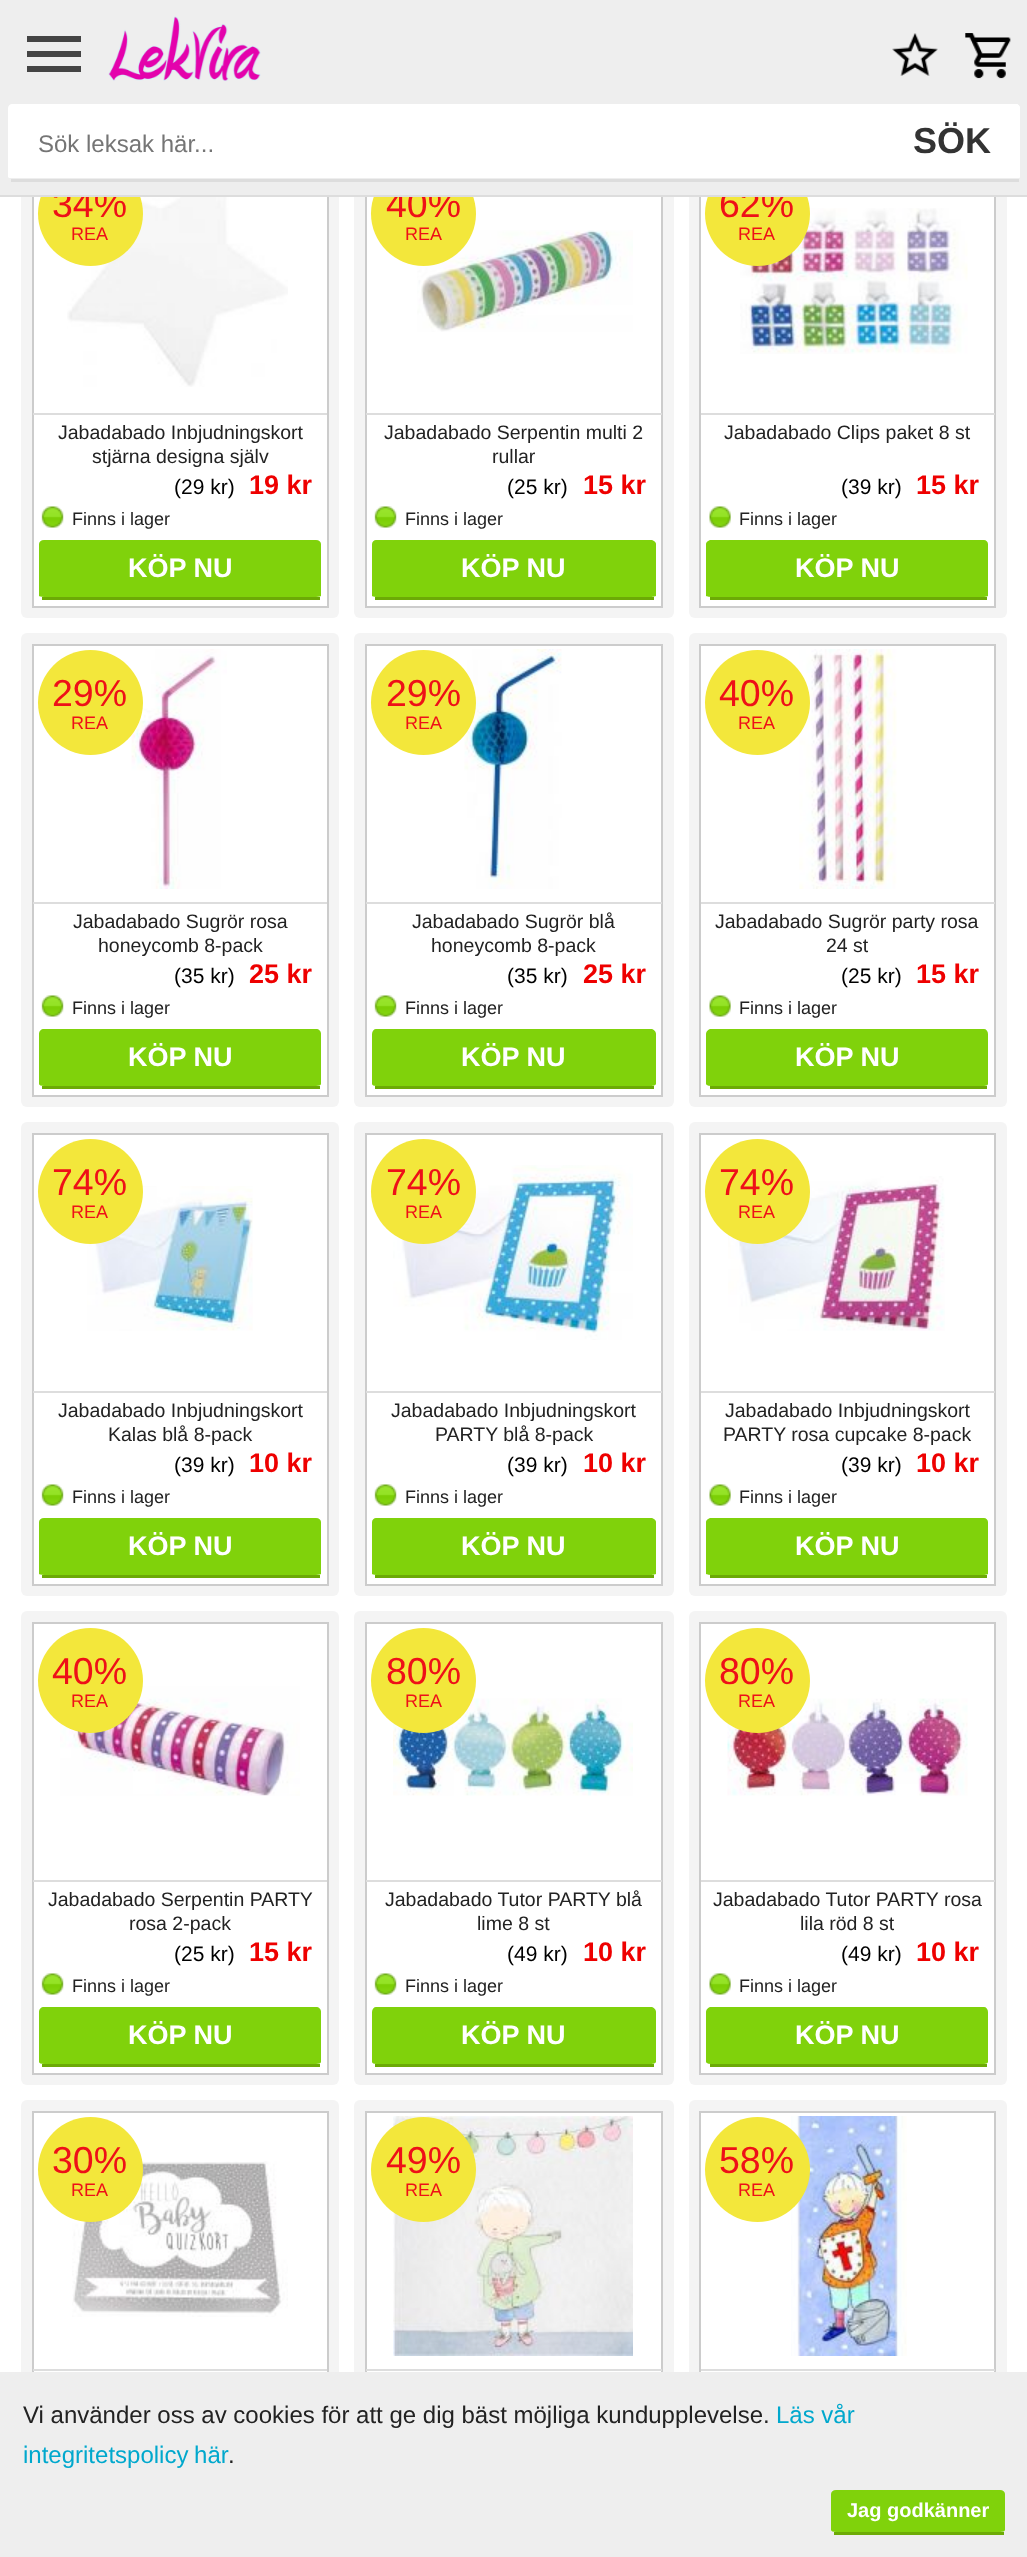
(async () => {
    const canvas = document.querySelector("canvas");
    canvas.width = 1027;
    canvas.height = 2557;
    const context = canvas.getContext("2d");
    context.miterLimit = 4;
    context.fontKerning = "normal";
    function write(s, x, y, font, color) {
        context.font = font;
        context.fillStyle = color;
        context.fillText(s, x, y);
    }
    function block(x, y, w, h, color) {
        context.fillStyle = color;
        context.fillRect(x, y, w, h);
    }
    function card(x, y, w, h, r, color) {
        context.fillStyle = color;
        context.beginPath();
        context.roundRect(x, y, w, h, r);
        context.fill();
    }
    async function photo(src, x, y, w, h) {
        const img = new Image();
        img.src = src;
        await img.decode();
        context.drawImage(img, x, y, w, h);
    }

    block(0, 0, 1027, 2557, "rgb(255, 255, 255)");
    card(21, 144, 318, 474, 6, "rgb(244, 244, 244)");
    block(34, 197, 293, 409, "rgb(255, 255, 255)");
    context.strokeStyle = "rgb(204, 204, 204)";
    context.lineWidth = 2;
    context.strokeRect(33, 156, 295, 451);
    await photo("media/4.png", 67, 197, 221, 190);
    context.fillStyle = "rgb(243, 231, 59)";
    context.beginPath();
    context.arc(90.5, 213.5, 52.5, 0, Math.PI * 2);
    context.fill();
    write("34%", 52, 217, "37.5px Liberation Sans", "rgb(238, 16, 24)");
    card(354, 144, 320, 474, 6, "rgb(244, 244, 244)");
    block(367, 197, 294, 409, "rgb(255, 255, 255)");
    context.strokeRect(366, 156, 296, 451);
    await photo("media/6.png", 417, 230, 216, 102);
    context.fillStyle = "rgb(243, 231, 59)";
    context.beginPath();
    context.arc(423.5, 213.5, 52.5, 0, Math.PI * 2);
    context.fill();
    write("40%", 386, 217, "37.5px Liberation Sans", "rgb(238, 16, 24)");
    card(689, 144, 318, 474, 6, "rgb(244, 244, 244)");
    block(701, 197, 293, 409, "rgb(255, 255, 255)");
    context.strokeRect(700, 156, 295, 451);
    await photo("media/8.png", 740, 208, 228, 146);
    context.fillStyle = "rgb(243, 231, 59)";
    context.beginPath();
    context.arc(757.5, 213.5, 52.5, 0, Math.PI * 2);
    context.fill();
    write("62%", 719, 217, "37.5px Liberation Sans", "rgb(238, 16, 24)");
    block(0, 0, 1027, 195, "rgb(238, 238, 238)");
    block(0, 195, 1027, 2, "rgb(221, 221, 221)");
    context.fillStyle = "rgb(68, 68, 68)";
    context.beginPath();
    context.moveTo(27, 72);
    context.lineTo(81, 72);
    context.lineTo(81, 66);
    context.lineTo(27, 66);
    context.closePath();
    context.moveTo(27, 57);
    context.lineTo(81, 57);
    context.lineTo(81, 51);
    context.lineTo(27, 51);
    context.closePath();
    context.moveTo(27, 36);
    context.lineTo(27, 42);
    context.lineTo(81, 42);
    context.lineTo(81, 36);
    context.closePath();
    context.fill();
    await photo("media/1.png", 108, 16, 153, 66);
    await photo("media/2.png", 892, 33, 46, 43);
    await photo("media/3.png", 965, 33, 46, 46);
    context.fillStyle = "rgb(255, 255, 255)";
    context.beginPath();
    context.moveTo(12, 104);
    context.lineTo(1016, 104);
    context.bezierCurveTo(1018, 104, 1020, 106, 1020, 108);
    context.lineTo(1020, 177);
    context.bezierCurveTo(1020, 178, 1018, 178, 1016, 178);
    context.lineTo(12, 178);
    context.bezierCurveTo(10, 178, 8, 178, 8, 177);
    context.lineTo(8, 108);
    context.bezierCurveTo(8, 106, 10, 104, 12, 104);
    context.closePath();
    context.fill();
    block(11, 179, 1008, 3, "rgb(221, 221, 221)");
    write("Sök leksak här...", 38, 152, "24px Liberation Sans", "rgb(117, 117, 117)");
    context.fillStyle = "rgb(255, 255, 255)";
    context.beginPath();
    context.moveTo(890, 104);
    context.lineTo(1016, 104);
    context.bezierCurveTo(1018, 104, 1020, 106, 1020, 108);
    context.lineTo(1020, 177);
    context.bezierCurveTo(1020, 178, 1018, 178, 1016, 178);
    context.lineTo(890, 178);
    context.bezierCurveTo(887, 178, 885, 178, 885, 177);
    context.lineTo(885, 108);
    context.bezierCurveTo(885, 106, 887, 104, 890, 104);
    context.closePath();
    context.fill();
    write("SÖK", 913, 153, "bold 36px Liberation Sans", "rgb(51, 51, 51)");
    write("REA", 71, 240, "18px Liberation Sans", "rgb(238, 16, 24)");
    block(33, 413, 294, 2, "rgb(221, 221, 221)");
    write("Jabadabado Inbjudningskort", 58, 439, "19.5px Liberation Sans", "rgb(34, 34, 34)");
    write("stjärna designa själv", 92, 463, "19.5px Liberation Sans", "rgb(34, 34, 34)");
    write("(29 kr)", 174, 494, "21px Liberation Sans", "rgb(0, 0, 0)");
    write("19 kr", 249, 494, "bold 27px Liberation Sans", "rgb(238, 0, 0)");
    await photo("media/5.png", 41, 506, 23, 22);
    write("Finns i lager", 72, 525, "18px Liberation Sans", "rgb(34, 34, 34)");
    context.fillStyle = "rgb(128, 210, 11)";
    context.beginPath();
    context.moveTo(44, 540);
    context.lineTo(316, 540);
    context.bezierCurveTo(319, 540, 321, 542, 321, 544);
    context.lineTo(321, 596);
    context.bezierCurveTo(321, 596, 319, 597, 316, 597);
    context.lineTo(44, 597);
    context.bezierCurveTo(41, 597, 39, 596, 39, 596);
    context.lineTo(39, 544);
    context.bezierCurveTo(39, 542, 41, 540, 44, 540);
    context.closePath();
    context.fill();
    block(42, 597, 278, 3, "rgb(108, 170, 6)");
    write("KÖP NU", 128, 577, "bold 27px Liberation Sans", "rgb(255, 255, 255)");
    write("REA", 405, 240, "18px Liberation Sans", "rgb(238, 16, 24)");
    block(366, 413, 296, 2, "rgb(221, 221, 221)");
    write("Jabadabado Serpentin multi 2", 384, 439, "19.5px Liberation Sans", "rgb(34, 34, 34)");
    write("rullar", 492, 463, "19.5px Liberation Sans", "rgb(34, 34, 34)");
    write("(25 kr)", 507, 494, "21px Liberation Sans", "rgb(0, 0, 0)");
    write("15 kr", 583, 494, "bold 27px Liberation Sans", "rgb(238, 0, 0)");
    await photo("media/7.png", 374, 506, 23, 22);
    write("Finns i lager", 405, 525, "18px Liberation Sans", "rgb(34, 34, 34)");
    context.fillStyle = "rgb(128, 210, 11)";
    context.beginPath();
    context.moveTo(376, 540);
    context.lineTo(651, 540);
    context.bezierCurveTo(653, 540, 656, 542, 656, 544);
    context.lineTo(656, 596);
    context.bezierCurveTo(656, 596, 653, 597, 651, 597);
    context.lineTo(376, 597);
    context.bezierCurveTo(374, 597, 372, 596, 372, 596);
    context.lineTo(372, 544);
    context.bezierCurveTo(372, 542, 374, 540, 376, 540);
    context.closePath();
    context.fill();
    block(375, 597, 279, 3, "rgb(108, 170, 6)");
    write("KÖP NU", 461, 577, "bold 27px Liberation Sans", "rgb(255, 255, 255)");
    write("REA", 738, 240, "18px Liberation Sans", "rgb(238, 16, 24)");
    block(701, 413, 294, 2, "rgb(221, 221, 221)");
    write("Jabadabado Clips paket 8 st", 724, 439, "19.5px Liberation Sans", "rgb(34, 34, 34)");
    write("(39 kr)", 841, 494, "21px Liberation Sans", "rgb(0, 0, 0)");
    write("15 kr", 916, 494, "bold 27px Liberation Sans", "rgb(238, 0, 0)");
    await photo("media/9.png", 709, 506, 22, 22);
    write("Finns i lager", 739, 525, "18px Liberation Sans", "rgb(34, 34, 34)");
    context.fillStyle = "rgb(128, 210, 11)";
    context.beginPath();
    context.moveTo(711, 540);
    context.lineTo(984, 540);
    context.bezierCurveTo(986, 540, 988, 542, 988, 544);
    context.lineTo(988, 596);
    context.bezierCurveTo(988, 596, 986, 597, 984, 597);
    context.lineTo(711, 597);
    context.bezierCurveTo(709, 597, 706, 596, 706, 596);
    context.lineTo(706, 544);
    context.bezierCurveTo(706, 542, 709, 540, 711, 540);
    context.closePath();
    context.fill();
    block(710, 597, 277, 3, "rgb(108, 170, 6)");
    write("KÖP NU", 795, 577, "bold 27px Liberation Sans", "rgb(255, 255, 255)");
    card(21, 633, 318, 474, 6, "rgb(244, 244, 244)");
    context.fillStyle = "rgb(255, 255, 255)";
    context.beginPath();
    context.rect(33, 645, 295, 451);
    context.fill();
    context.stroke();
    await photo("media/10.png", 131, 649, 96, 240);
    context.fillStyle = "rgb(243, 231, 59)";
    context.beginPath();
    context.arc(90.5, 702.5, 52.5, 0, Math.PI * 2);
    context.fill();
    write("29%", 52, 706, "37.5px Liberation Sans", "rgb(238, 16, 24)");
    write("REA", 71, 729, "18px Liberation Sans", "rgb(238, 16, 24)");
    block(33, 902, 294, 2, "rgb(221, 221, 221)");
    write("Jabadabado Sugrör rosa", 73, 928, "19.5px Liberation Sans", "rgb(34, 34, 34)");
    write("honeycomb 8-pack", 98, 952, "19.5px Liberation Sans", "rgb(34, 34, 34)");
    write("(35 kr)", 174, 983, "21px Liberation Sans", "rgb(0, 0, 0)");
    write("25 kr", 249, 983, "bold 27px Liberation Sans", "rgb(238, 0, 0)");
    await photo("media/5.png", 41, 995, 23, 22);
    write("Finns i lager", 72, 1014, "18px Liberation Sans", "rgb(34, 34, 34)");
    context.fillStyle = "rgb(128, 210, 11)";
    context.beginPath();
    context.moveTo(44, 1029);
    context.lineTo(316, 1029);
    context.bezierCurveTo(319, 1029, 321, 1031, 321, 1034);
    context.lineTo(321, 1084);
    context.bezierCurveTo(321, 1085, 319, 1086, 316, 1086);
    context.lineTo(44, 1086);
    context.bezierCurveTo(41, 1086, 39, 1085, 39, 1084);
    context.lineTo(39, 1034);
    context.bezierCurveTo(39, 1031, 41, 1029, 44, 1029);
    context.closePath();
    context.fill();
    block(42, 1086, 278, 3, "rgb(108, 170, 6)");
    write("KÖP NU", 128, 1066, "bold 27px Liberation Sans", "rgb(255, 255, 255)");
    card(354, 633, 320, 474, 6, "rgb(244, 244, 244)");
    context.fillStyle = "rgb(255, 255, 255)";
    context.beginPath();
    context.rect(366, 645, 296, 451);
    context.fill();
    context.stroke();
    await photo("media/11.png", 464, 649, 98, 240);
    context.fillStyle = "rgb(243, 231, 59)";
    context.beginPath();
    context.arc(423.5, 702.5, 52.5, 0, Math.PI * 2);
    context.fill();
    write("29%", 386, 706, "37.5px Liberation Sans", "rgb(238, 16, 24)");
    write("REA", 405, 729, "18px Liberation Sans", "rgb(238, 16, 24)");
    block(366, 902, 296, 2, "rgb(221, 221, 221)");
    write("Jabadabado Sugrör blå", 412, 928, "19.5px Liberation Sans", "rgb(34, 34, 34)");
    write("honeycomb 8-pack", 431, 952, "19.5px Liberation Sans", "rgb(34, 34, 34)");
    write("(35 kr)", 507, 983, "21px Liberation Sans", "rgb(0, 0, 0)");
    write("25 kr", 583, 983, "bold 27px Liberation Sans", "rgb(238, 0, 0)");
    await photo("media/7.png", 374, 995, 23, 22);
    write("Finns i lager", 405, 1014, "18px Liberation Sans", "rgb(34, 34, 34)");
    context.fillStyle = "rgb(128, 210, 11)";
    context.beginPath();
    context.moveTo(376, 1029);
    context.lineTo(651, 1029);
    context.bezierCurveTo(653, 1029, 656, 1031, 656, 1034);
    context.lineTo(656, 1084);
    context.bezierCurveTo(656, 1085, 653, 1086, 651, 1086);
    context.lineTo(376, 1086);
    context.bezierCurveTo(374, 1086, 372, 1085, 372, 1084);
    context.lineTo(372, 1034);
    context.bezierCurveTo(372, 1031, 374, 1029, 376, 1029);
    context.closePath();
    context.fill();
    block(375, 1086, 279, 3, "rgb(108, 170, 6)");
    write("KÖP NU", 461, 1066, "bold 27px Liberation Sans", "rgb(255, 255, 255)");
    card(689, 633, 318, 474, 6, "rgb(244, 244, 244)");
    context.fillStyle = "rgb(255, 255, 255)";
    context.beginPath();
    context.rect(700, 645, 295, 451);
    context.fill();
    context.stroke();
    await photo("media/12.png", 799, 649, 98, 240);
    context.fillStyle = "rgb(243, 231, 59)";
    context.beginPath();
    context.arc(757.5, 702.5, 52.5, 0, Math.PI * 2);
    context.fill();
    write("40%", 719, 706, "37.5px Liberation Sans", "rgb(238, 16, 24)");
    write("REA", 738, 729, "18px Liberation Sans", "rgb(238, 16, 24)");
    block(701, 902, 294, 2, "rgb(221, 221, 221)");
    write("Jabadabado Sugrör party rosa", 715, 928, "19.5px Liberation Sans", "rgb(34, 34, 34)");
    write("24 st", 826, 952, "19.5px Liberation Sans", "rgb(34, 34, 34)");
    write("(25 kr)", 841, 983, "21px Liberation Sans", "rgb(0, 0, 0)");
    write("15 kr", 916, 983, "bold 27px Liberation Sans", "rgb(238, 0, 0)");
    await photo("media/9.png", 709, 995, 22, 22);
    write("Finns i lager", 739, 1014, "18px Liberation Sans", "rgb(34, 34, 34)");
    context.fillStyle = "rgb(128, 210, 11)";
    context.beginPath();
    context.moveTo(711, 1029);
    context.lineTo(984, 1029);
    context.bezierCurveTo(986, 1029, 988, 1031, 988, 1034);
    context.lineTo(988, 1084);
    context.bezierCurveTo(988, 1085, 986, 1086, 984, 1086);
    context.lineTo(711, 1086);
    context.bezierCurveTo(709, 1086, 706, 1085, 706, 1084);
    context.lineTo(706, 1034);
    context.bezierCurveTo(706, 1031, 709, 1029, 711, 1029);
    context.closePath();
    context.fill();
    block(710, 1086, 277, 3, "rgb(108, 170, 6)");
    write("KÖP NU", 795, 1066, "bold 27px Liberation Sans", "rgb(255, 255, 255)");
    card(21, 1122, 318, 474, 6, "rgb(244, 244, 244)");
    context.fillStyle = "rgb(255, 255, 255)";
    context.beginPath();
    context.rect(33, 1134, 295, 451);
    context.fill();
    context.stroke();
    await photo("media/13.png", 87, 1186, 166, 145);
    context.fillStyle = "rgb(243, 231, 59)";
    context.beginPath();
    context.arc(90.5, 1191.5, 52.5, 0, Math.PI * 2);
    context.fill();
    write("74%", 52, 1195, "37.5px Liberation Sans", "rgb(238, 16, 24)");
    write("REA", 71, 1218, "18px Liberation Sans", "rgb(238, 16, 24)");
    block(33, 1391, 294, 2, "rgb(221, 221, 221)");
    write("Jabadabado Inbjudningskort", 58, 1417, "19.5px Liberation Sans", "rgb(34, 34, 34)");
    write("Kalas blå 8-pack", 108, 1441, "19.5px Liberation Sans", "rgb(34, 34, 34)");
    write("(39 kr)", 174, 1472, "21px Liberation Sans", "rgb(0, 0, 0)");
    write("10 kr", 249, 1472, "bold 27px Liberation Sans", "rgb(238, 0, 0)");
    await photo("media/5.png", 41, 1484, 23, 22);
    write("Finns i lager", 72, 1503, "18px Liberation Sans", "rgb(34, 34, 34)");
    context.fillStyle = "rgb(128, 210, 11)";
    context.beginPath();
    context.moveTo(44, 1518);
    context.lineTo(316, 1518);
    context.bezierCurveTo(319, 1518, 321, 1520, 321, 1522);
    context.lineTo(321, 1574);
    context.bezierCurveTo(321, 1574, 319, 1575, 316, 1575);
    context.lineTo(44, 1575);
    context.bezierCurveTo(41, 1575, 39, 1574, 39, 1574);
    context.lineTo(39, 1522);
    context.bezierCurveTo(39, 1520, 41, 1518, 44, 1518);
    context.closePath();
    context.fill();
    block(42, 1575, 278, 3, "rgb(108, 170, 6)");
    write("KÖP NU", 128, 1555, "bold 27px Liberation Sans", "rgb(255, 255, 255)");
    card(354, 1122, 320, 474, 6, "rgb(244, 244, 244)");
    context.fillStyle = "rgb(255, 255, 255)";
    context.beginPath();
    context.rect(366, 1134, 296, 451);
    context.fill();
    context.stroke();
    await photo("media/14.png", 393, 1165, 240, 175);
    context.fillStyle = "rgb(243, 231, 59)";
    context.beginPath();
    context.arc(423.5, 1191.5, 52.5, 0, Math.PI * 2);
    context.fill();
    write("74%", 386, 1195, "37.5px Liberation Sans", "rgb(238, 16, 24)");
    write("REA", 405, 1218, "18px Liberation Sans", "rgb(238, 16, 24)");
    block(366, 1391, 296, 2, "rgb(221, 221, 221)");
    write("Jabadabado Inbjudningskort", 391, 1417, "19.5px Liberation Sans", "rgb(34, 34, 34)");
    write("PARTY blå 8-pack", 435, 1441, "19.5px Liberation Sans", "rgb(34, 34, 34)");
    write("(39 kr)", 507, 1472, "21px Liberation Sans", "rgb(0, 0, 0)");
    write("10 kr", 583, 1472, "bold 27px Liberation Sans", "rgb(238, 0, 0)");
    await photo("media/7.png", 374, 1484, 23, 22);
    write("Finns i lager", 405, 1503, "18px Liberation Sans", "rgb(34, 34, 34)");
    context.fillStyle = "rgb(128, 210, 11)";
    context.beginPath();
    context.moveTo(376, 1518);
    context.lineTo(651, 1518);
    context.bezierCurveTo(653, 1518, 656, 1520, 656, 1522);
    context.lineTo(656, 1574);
    context.bezierCurveTo(656, 1574, 653, 1575, 651, 1575);
    context.lineTo(376, 1575);
    context.bezierCurveTo(374, 1575, 372, 1574, 372, 1574);
    context.lineTo(372, 1522);
    context.bezierCurveTo(372, 1520, 374, 1518, 376, 1518);
    context.closePath();
    context.fill();
    block(375, 1575, 279, 3, "rgb(108, 170, 6)");
    write("KÖP NU", 461, 1555, "bold 27px Liberation Sans", "rgb(255, 255, 255)");
    card(689, 1122, 318, 474, 6, "rgb(244, 244, 244)");
    context.fillStyle = "rgb(255, 255, 255)";
    context.beginPath();
    context.rect(700, 1134, 295, 451);
    context.fill();
    context.stroke();
    await photo("media/15.png", 728, 1176, 217, 155);
    context.fillStyle = "rgb(243, 231, 59)";
    context.beginPath();
    context.arc(757.5, 1191.5, 52.5, 0, Math.PI * 2);
    context.fill();
    write("74%", 719, 1195, "37.5px Liberation Sans", "rgb(238, 16, 24)");
    write("REA", 738, 1218, "18px Liberation Sans", "rgb(238, 16, 24)");
    block(701, 1391, 294, 2, "rgb(221, 221, 221)");
    write("Jabadabado Inbjudningskort", 725, 1417, "19.5px Liberation Sans", "rgb(34, 34, 34)");
    write("PARTY rosa cupcake 8-pack", 723, 1441, "19.5px Liberation Sans", "rgb(34, 34, 34)");
    write("(39 kr)", 841, 1472, "21px Liberation Sans", "rgb(0, 0, 0)");
    write("10 kr", 916, 1472, "bold 27px Liberation Sans", "rgb(238, 0, 0)");
    await photo("media/9.png", 709, 1484, 22, 22);
    write("Finns i lager", 739, 1503, "18px Liberation Sans", "rgb(34, 34, 34)");
    context.fillStyle = "rgb(128, 210, 11)";
    context.beginPath();
    context.moveTo(711, 1518);
    context.lineTo(984, 1518);
    context.bezierCurveTo(986, 1518, 988, 1520, 988, 1522);
    context.lineTo(988, 1574);
    context.bezierCurveTo(988, 1574, 986, 1575, 984, 1575);
    context.lineTo(711, 1575);
    context.bezierCurveTo(709, 1575, 706, 1574, 706, 1574);
    context.lineTo(706, 1522);
    context.bezierCurveTo(706, 1520, 709, 1518, 711, 1518);
    context.closePath();
    context.fill();
    block(710, 1575, 277, 3, "rgb(108, 170, 6)");
    write("KÖP NU", 795, 1555, "bold 27px Liberation Sans", "rgb(255, 255, 255)");
    card(21, 1611, 318, 474, 6, "rgb(244, 244, 244)");
    context.fillStyle = "rgb(255, 255, 255)";
    context.beginPath();
    context.rect(33, 1623, 295, 451);
    context.fill();
    context.stroke();
    await photo("media/16.png", 60, 1675, 240, 121);
    context.fillStyle = "rgb(243, 231, 59)";
    context.beginPath();
    context.arc(90.5, 1680.5, 52.5, 0, Math.PI * 2);
    context.fill();
    write("40%", 52, 1684, "37.5px Liberation Sans", "rgb(238, 16, 24)");
    write("REA", 71, 1707, "18px Liberation Sans", "rgb(238, 16, 24)");
    block(33, 1880, 294, 2, "rgb(221, 221, 221)");
    write("Jabadabado Serpentin PARTY", 48, 1906, "19.5px Liberation Sans", "rgb(34, 34, 34)");
    write("rosa 2-pack", 129, 1930, "19.5px Liberation Sans", "rgb(34, 34, 34)");
    write("(25 kr)", 174, 1961, "21px Liberation Sans", "rgb(0, 0, 0)");
    write("15 kr", 249, 1961, "bold 27px Liberation Sans", "rgb(238, 0, 0)");
    await photo("media/5.png", 41, 1973, 23, 22);
    write("Finns i lager", 72, 1992, "18px Liberation Sans", "rgb(34, 34, 34)");
    context.fillStyle = "rgb(128, 210, 11)";
    context.beginPath();
    context.moveTo(44, 2007);
    context.lineTo(316, 2007);
    context.bezierCurveTo(319, 2007, 321, 2009, 321, 2012);
    context.lineTo(321, 2062);
    context.bezierCurveTo(321, 2063, 319, 2064, 316, 2064);
    context.lineTo(44, 2064);
    context.bezierCurveTo(41, 2064, 39, 2063, 39, 2062);
    context.lineTo(39, 2012);
    context.bezierCurveTo(39, 2009, 41, 2007, 44, 2007);
    context.closePath();
    context.fill();
    block(42, 2064, 278, 3, "rgb(108, 170, 6)");
    write("KÖP NU", 128, 2044, "bold 27px Liberation Sans", "rgb(255, 255, 255)");
    card(354, 1611, 320, 474, 6, "rgb(244, 244, 244)");
    context.fillStyle = "rgb(255, 255, 255)";
    context.beginPath();
    context.rect(366, 1623, 296, 451);
    context.fill();
    context.stroke();
    await photo("media/17.png", 393, 1698, 240, 98);
    context.fillStyle = "rgb(243, 231, 59)";
    context.beginPath();
    context.arc(423.5, 1680.5, 52.5, 0, Math.PI * 2);
    context.fill();
    write("80%", 386, 1684, "37.5px Liberation Sans", "rgb(238, 16, 24)");
    write("REA", 405, 1707, "18px Liberation Sans", "rgb(238, 16, 24)");
    block(366, 1880, 296, 2, "rgb(221, 221, 221)");
    write("Jabadabado Tutor PARTY blå", 385, 1906, "19.5px Liberation Sans", "rgb(34, 34, 34)");
    write("lime 8 st", 477, 1930, "19.5px Liberation Sans", "rgb(34, 34, 34)");
    write("(49 kr)", 507, 1961, "21px Liberation Sans", "rgb(0, 0, 0)");
    write("10 kr", 583, 1961, "bold 27px Liberation Sans", "rgb(238, 0, 0)");
    await photo("media/7.png", 374, 1973, 23, 22);
    write("Finns i lager", 405, 1992, "18px Liberation Sans", "rgb(34, 34, 34)");
    context.fillStyle = "rgb(128, 210, 11)";
    context.beginPath();
    context.moveTo(376, 2007);
    context.lineTo(651, 2007);
    context.bezierCurveTo(653, 2007, 656, 2009, 656, 2012);
    context.lineTo(656, 2062);
    context.bezierCurveTo(656, 2063, 653, 2064, 651, 2064);
    context.lineTo(376, 2064);
    context.bezierCurveTo(374, 2064, 372, 2063, 372, 2062);
    context.lineTo(372, 2012);
    context.bezierCurveTo(372, 2009, 374, 2007, 376, 2007);
    context.closePath();
    context.fill();
    block(375, 2064, 279, 3, "rgb(108, 170, 6)");
    write("KÖP NU", 461, 2044, "bold 27px Liberation Sans", "rgb(255, 255, 255)");
    card(689, 1611, 318, 474, 6, "rgb(244, 244, 244)");
    context.fillStyle = "rgb(255, 255, 255)";
    context.beginPath();
    context.rect(700, 1623, 295, 451);
    context.fill();
    context.stroke();
    await photo("media/18.png", 727, 1698, 241, 98);
    context.fillStyle = "rgb(243, 231, 59)";
    context.beginPath();
    context.arc(757.5, 1680.5, 52.5, 0, Math.PI * 2);
    context.fill();
    write("80%", 719, 1684, "37.5px Liberation Sans", "rgb(238, 16, 24)");
    write("REA", 738, 1707, "18px Liberation Sans", "rgb(238, 16, 24)");
    block(701, 1880, 294, 2, "rgb(221, 221, 221)");
    write("Jabadabado Tutor PARTY rosa", 713, 1906, "19.5px Liberation Sans", "rgb(34, 34, 34)");
    write("lila röd 8 st", 800, 1930, "19.5px Liberation Sans", "rgb(34, 34, 34)");
    write("(49 kr)", 841, 1961, "21px Liberation Sans", "rgb(0, 0, 0)");
    write("10 kr", 916, 1961, "bold 27px Liberation Sans", "rgb(238, 0, 0)");
    await photo("media/9.png", 709, 1973, 22, 22);
    write("Finns i lager", 739, 1992, "18px Liberation Sans", "rgb(34, 34, 34)");
    context.fillStyle = "rgb(128, 210, 11)";
    context.beginPath();
    context.moveTo(711, 2007);
    context.lineTo(984, 2007);
    context.bezierCurveTo(986, 2007, 988, 2009, 988, 2012);
    context.lineTo(988, 2062);
    context.bezierCurveTo(988, 2063, 986, 2064, 984, 2064);
    context.lineTo(711, 2064);
    context.bezierCurveTo(709, 2064, 706, 2063, 706, 2062);
    context.lineTo(706, 2012);
    context.bezierCurveTo(706, 2009, 709, 2007, 711, 2007);
    context.closePath();
    context.fill();
    block(710, 2064, 277, 3, "rgb(108, 170, 6)");
    write("KÖP NU", 795, 2044, "bold 27px Liberation Sans", "rgb(255, 255, 255)");
    card(21, 2100, 318, 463, 6, "rgb(244, 244, 244)");
    block(34, 2113, 293, 259, "rgb(255, 255, 255)");
    context.strokeRect(33, 2112, 295, 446);
    await photo("media/19.png", 72, 2161, 216, 156);
    context.fillStyle = "rgb(243, 231, 59)";
    context.beginPath();
    context.arc(90.5, 2169.5, 52.5, 0, Math.PI * 2);
    context.fill();
    write("30%", 52, 2173, "37.5px Liberation Sans", "rgb(238, 16, 24)");
    write("REA", 71, 2196, "18px Liberation Sans", "rgb(238, 16, 24)");
    block(33, 2369, 294, 2, "rgb(221, 221, 221)");
    card(354, 2100, 320, 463, 6, "rgb(244, 244, 244)");
    block(367, 2113, 294, 259, "rgb(255, 255, 255)");
    context.strokeRect(366, 2112, 296, 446);
    await photo("media/20.png", 393, 2116, 240, 240);
    context.fillStyle = "rgb(243, 231, 59)";
    context.beginPath();
    context.arc(423.5, 2169.5, 52.5, 0, Math.PI * 2);
    context.fill();
    write("49%", 386, 2173, "37.5px Liberation Sans", "rgb(238, 16, 24)");
    write("REA", 405, 2196, "18px Liberation Sans", "rgb(238, 16, 24)");
    block(366, 2369, 296, 2, "rgb(221, 221, 221)");
    card(689, 2100, 318, 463, 6, "rgb(244, 244, 244)");
    block(701, 2113, 293, 259, "rgb(255, 255, 255)");
    context.strokeRect(700, 2112, 295, 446);
    await photo("media/21.png", 791, 2116, 116, 240);
    context.fillStyle = "rgb(243, 231, 59)";
    context.beginPath();
    context.arc(757.5, 2169.5, 52.5, 0, Math.PI * 2);
    context.fill();
    write("58%", 719, 2173, "37.5px Liberation Sans", "rgb(238, 16, 24)");
    write("REA", 738, 2196, "18px Liberation Sans", "rgb(238, 16, 24)");
    block(701, 2369, 294, 2, "rgb(221, 221, 221)");
    block(0, 2372, 1027, 185, "rgb(238, 238, 238)");
    write("Vi använder oss av cookies för att ge dig bäst möjliga kundupplevelse.", 23, 2423, "24px Liberation Sans", "rgb(34, 34, 34)");
    write("Läs vår", 776, 2423, "24px Liberation Sans", "rgb(0, 168, 205)");
    context.wordSpacing = "-1px";
    write("integritetspolicy här", 23, 2463, "24px Liberation Sans", "rgb(0, 168, 205)");
    context.wordSpacing = "0px";
    write(".", 228, 2463, "24px Liberation Sans", "rgb(34, 34, 34)");
    context.fillStyle = "rgb(128, 210, 11)";
    context.beginPath();
    context.moveTo(836, 2490);
    context.lineTo(1000, 2490);
    context.bezierCurveTo(1003, 2490, 1005, 2492, 1005, 2494);
    context.lineTo(1005, 2530);
    context.bezierCurveTo(1005, 2531, 1003, 2532, 1000, 2532);
    context.lineTo(836, 2532);
    context.bezierCurveTo(833, 2532, 831, 2531, 831, 2530);
    context.lineTo(831, 2494);
    context.bezierCurveTo(831, 2492, 833, 2490, 836, 2490);
    context.closePath();
    context.fill();
    block(834, 2532, 170, 3, "rgb(108, 170, 6)");
    write("Jag godkänner", 847, 2517, "bold 20px Liberation Sans", "rgb(255, 255, 255)");
})();
